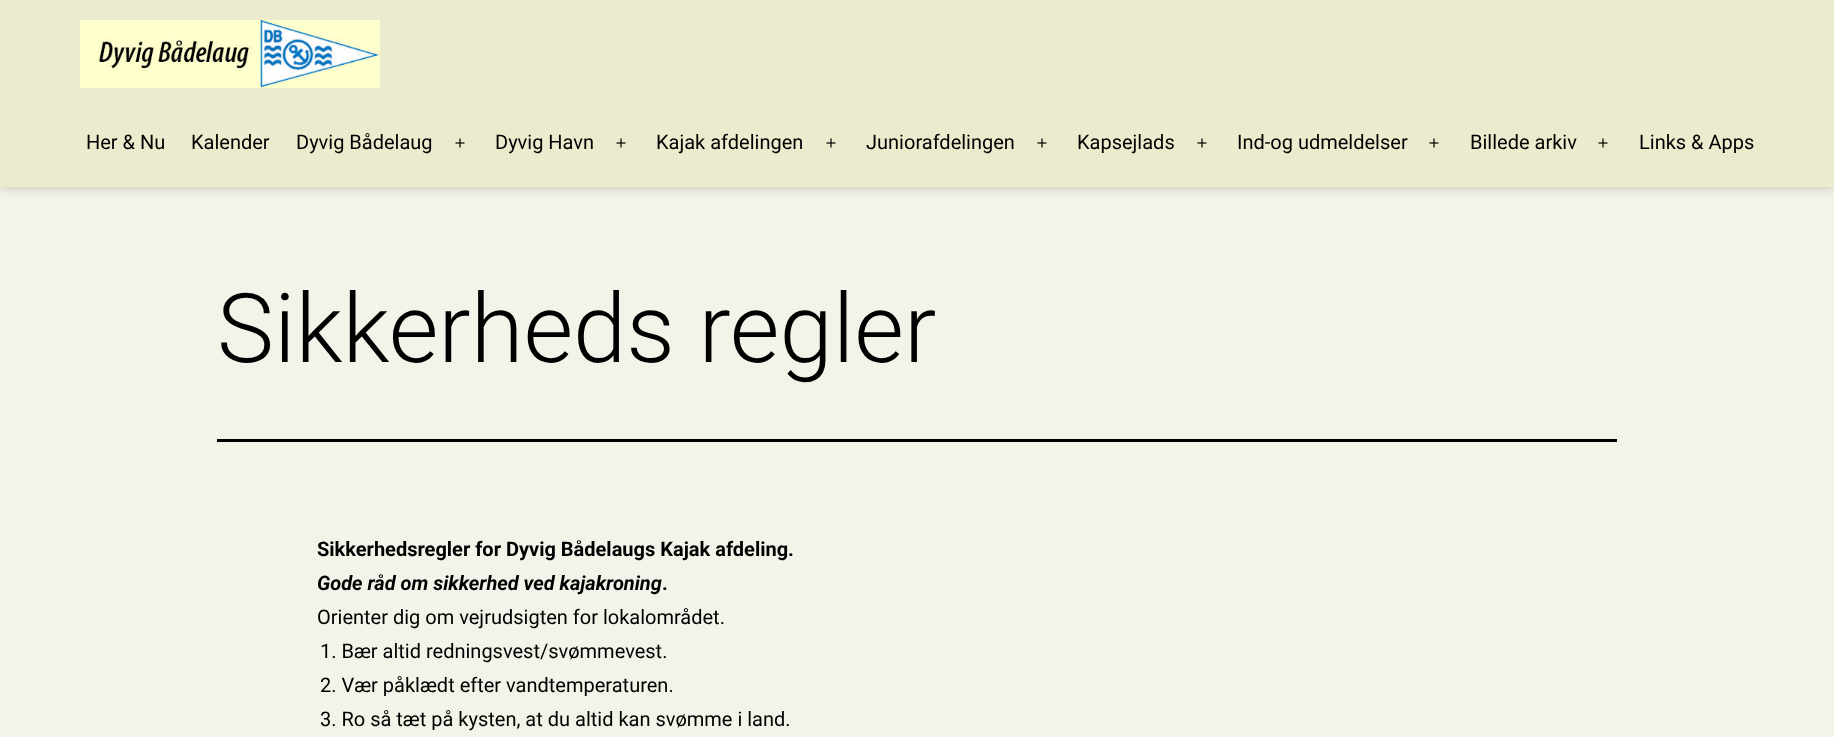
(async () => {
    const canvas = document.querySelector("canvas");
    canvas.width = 1834;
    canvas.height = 737;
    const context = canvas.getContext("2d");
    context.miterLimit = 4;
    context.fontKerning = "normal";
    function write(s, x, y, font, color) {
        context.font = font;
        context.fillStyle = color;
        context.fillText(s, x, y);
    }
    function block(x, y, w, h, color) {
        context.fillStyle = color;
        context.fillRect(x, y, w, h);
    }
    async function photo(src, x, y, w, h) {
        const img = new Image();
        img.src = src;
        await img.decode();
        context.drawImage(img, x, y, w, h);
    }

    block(0, 0, 1834, 737, "rgb(243, 243, 233)");
    context.fillStyle = "rgba(0, 0, 0, 0.16)";
    context.filter = "blur(5px)";
    context.beginPath();
    context.rect(0, 2, 1834, 187);
    context.fill();
    context.filter = "none";
    block(0, 0, 1834, 187, "rgb(237, 235, 206)");
    await photo("media/1.png", 80, 20, 300, 68);
    write("Her & Nu", 86, 149, "20px Roboto", "rgb(0, 0, 0)");
    write("Kalender", 191, 149, "20px Roboto", "rgb(0, 0, 0)");
    write("Dyvig Bådelaug", 296, 149, "20px Roboto", "rgb(0, 0, 0)");
    await photo("media/2.png", 455, 138, 10, 10);
    write("Dyvig Havn", 495, 149, "20px Roboto", "rgb(0, 0, 0)");
    await photo("media/2.png", 616, 138, 10, 10);
    write("Kajak afdelingen", 656, 149, "20px Roboto", "rgb(0, 0, 0)");
    await photo("media/2.png", 826, 138, 10, 10);
    write("Juniorafdelingen", 866, 149, "20px Roboto", "rgb(0, 0, 0)");
    await photo("media/2.png", 1037, 138, 10, 10);
    write("Kapsejlads", 1077, 149, "20px Roboto", "rgb(0, 0, 0)");
    await photo("media/2.png", 1197, 138, 10, 10);
    write("Ind-og udmeldelser", 1237, 149, "20px Roboto", "rgb(0, 0, 0)");
    await photo("media/2.png", 1429, 138, 10, 10);
    write("Billede arkiv", 1470, 149, "20px Roboto", "rgb(0, 0, 0)");
    await photo("media/2.png", 1598, 138, 10, 10);
    write("Links & Apps", 1639, 149, "20px Roboto", "rgb(0, 0, 0)");
    write("Sikkerheds regler", 217, 362, "300 96px Roboto", "rgb(0, 0, 0)");
    block(217, 439, 1400, 3, "rgb(0, 0, 0)");
    write("Sikkerhedsregler for Dyvig Bådelaugs Kajak afdeling.", 317, 556, "bold 20px Roboto", "rgb(0, 0, 0)");
    write("Gode råd om sikkerhed ved kajakroning", 317, 590, "italic bold 20px Roboto", "rgb(0, 0, 0)");
    write(".", 662, 590, "bold 20px Roboto", "rgb(0, 0, 0)");
    write("Orienter dig om vejrudsigten for lokalområdet.", 317, 624, "20px Roboto", "rgb(0, 0, 0)");
    write("1. Bær altid redningsvest/svømmevest.", 320, 658, "20px Roboto", "rgb(0, 0, 0)");
    write("2. Vær påklædt efter vandtemperaturen.", 320, 692, "20px Roboto", "rgb(0, 0, 0)");
    write("3. Ro så tæt på kysten, at du altid kan svømme i land.", 320, 726, "20px Roboto", "rgb(0, 0, 0)");
})();
